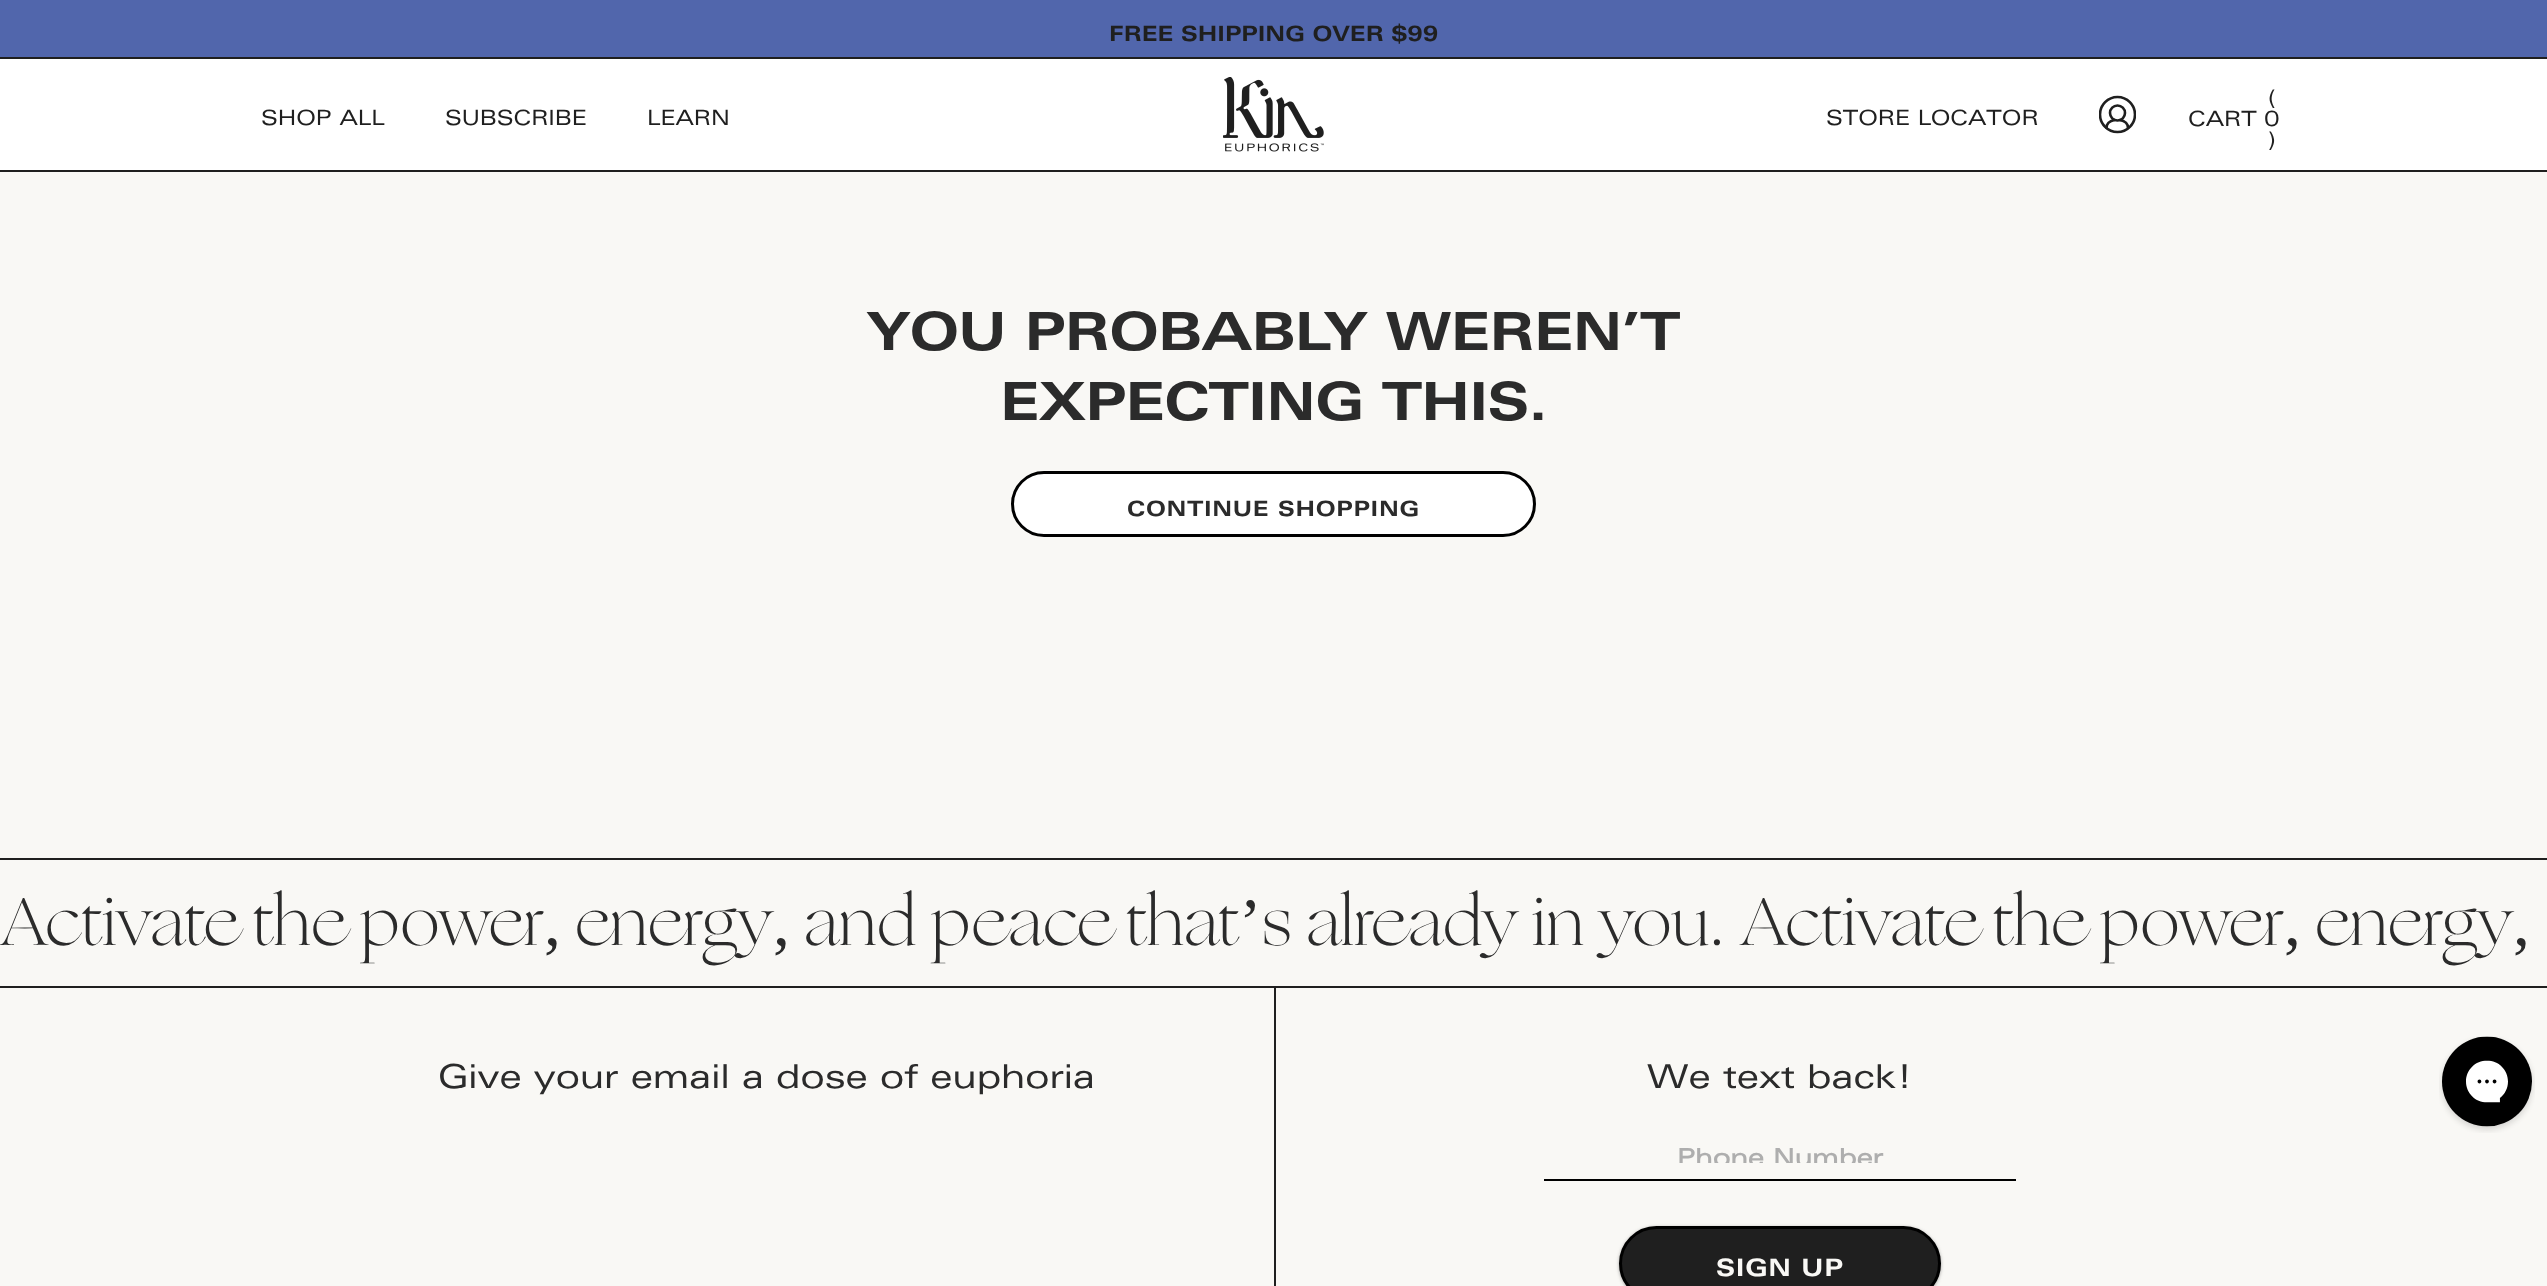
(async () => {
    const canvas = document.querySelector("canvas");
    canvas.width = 2547;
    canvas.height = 1286;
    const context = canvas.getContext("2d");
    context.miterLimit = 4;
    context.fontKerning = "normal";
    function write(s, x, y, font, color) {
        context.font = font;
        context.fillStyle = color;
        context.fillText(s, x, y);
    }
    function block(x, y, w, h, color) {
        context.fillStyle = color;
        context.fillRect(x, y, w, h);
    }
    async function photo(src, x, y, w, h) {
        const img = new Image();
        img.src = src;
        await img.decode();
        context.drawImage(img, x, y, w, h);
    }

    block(0, 0, 2547, 1286, "rgb(249, 248, 245)");
    block(0, 59, 2547, 111, "rgb(255, 255, 255)");
    block(0, 170, 2547, 2, "rgb(31, 31, 31)");
    block(0, 0, 2547, 57, "rgb(81, 102, 172)");
    block(0, 57, 2547, 2, "rgb(31, 31, 31)");
    write("FREE SHIPPING OVER $99", 1109, 41, "bold 21px 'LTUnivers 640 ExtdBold'", "rgb(31, 31, 31)");
    write("SHOP ALL", 261, 125, "21px 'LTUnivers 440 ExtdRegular'", "rgb(31, 31, 31)");
    write("SUBSCRIBE", 445, 125, "21px 'LTUnivers 440 ExtdRegular'", "rgb(31, 31, 31)");
    write("LEARN", 647, 125, "21px 'LTUnivers 440 ExtdRegular'", "rgb(31, 31, 31)");
    await photo("media/1.png", 1223, 77, 101, 75);
    write("STORE LOCATOR", 1826, 125, "21px 'LTUnivers 440 ExtdRegular'", "rgb(31, 31, 31)");
    context.save();
    context.beginPath();
    context.rect(2099, 90, 37, 48);
    context.clip();
    context.beginPath();
    context.arc(2117.5, 114.5, 17.5, 0, Math.PI * 2);
    context.strokeStyle = "rgb(31, 31, 31)";
    context.lineWidth = 2.6;
    context.stroke();
    context.restore();
    context.beginPath();
    context.moveTo(2106.5, 128);
    context.bezierCurveTo(2106.5, 124.5, 2109, 121, 2114.5, 120);
    context.moveTo(2120, 120);
    context.bezierCurveTo(2125.5, 121, 2128, 124.5, 2128, 128);
    context.strokeStyle = "rgb(31, 31, 31)";
    context.lineWidth = 2.6;
    context.lineCap = "round";
    context.stroke();
    context.beginPath();
    context.arc(2117.5, 113, 7.5, 0, Math.PI * 2);
    context.stroke();
    write("CART", 2188, 126, "21px 'LTUnivers 440 ExtdRegular'", "rgb(31, 31, 31)");
    write("(", 2268, 105, "21px 'LTUnivers 440 ExtdRegular'", "rgb(31, 31, 31)");
    write("0", 2264, 126, "21px 'LTUnivers 440 ExtdRegular'", "rgb(31, 31, 31)");
    write(")", 2268, 147, "21px 'LTUnivers 440 ExtdRegular'", "rgb(31, 31, 31)");
    context.letterSpacing = "-0.75px";
    write("YOU PROBABLY WEREN’T", 867, 350, "bold 52.5px 'LTUnivers 640 ExtdBold'", "rgb(43, 43, 43)");
    write("EXPECTING THIS.", 1000, 420, "bold 52.5px 'LTUnivers 640 ExtdBold'", "rgb(43, 43, 43)");
    context.fillStyle = "rgb(255, 255, 255)";
    context.beginPath();
    context.roundRect(1012.5, 472.5, 522, 63, 31.5);
    context.fill();
    context.strokeStyle = "rgb(0, 0, 0)";
    context.lineWidth = 3;
    context.stroke();
    context.letterSpacing = "0.75px";
    write("CONTINUE SHOPPING", 1127, 516, "bold 21px 'LTUnivers 640 ExtdBold'", "rgb(43, 43, 43)");
    block(0, 858, 2547, 2, "rgb(31, 31, 31)");
    block(1274, 987, 2, 299, "rgb(31, 31, 31)");
    block(0, 986, 2547, 2, "rgb(31, 31, 31)");
    context.letterSpacing = "0px";
    write("Activate the power", 0, 945, "300 67.5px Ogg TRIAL", "rgb(43, 43, 43)");
    write(",", 544, 945, "67.5px Liberation Serif", "rgb(43, 43, 43)");
    write("energy", 575, 945, "300 67.5px Ogg TRIAL", "rgb(43, 43, 43)");
    write(",", 773, 945, "67.5px Liberation Serif", "rgb(43, 43, 43)");
    write("and peace that", 804, 945, "300 67.5px Ogg TRIAL", "rgb(43, 43, 43)");
    write("’", 1239, 945, "67.5px Liberation Serif", "rgb(43, 43, 43)");
    write("s already in you.", 1262, 945, "300 67.5px Ogg TRIAL", "rgb(43, 43, 43)");
    write("Activate the power", 1740, 945, "300 67.5px Ogg TRIAL", "rgb(43, 43, 43)");
    write(",", 2284, 945, "67.5px Liberation Serif", "rgb(43, 43, 43)");
    write("energy", 2315, 945, "300 67.5px Ogg TRIAL", "rgb(43, 43, 43)");
    write(",", 2513, 945, "67.5px Liberation Serif", "rgb(43, 43, 43)");
    write("Give your email a dose of euphoria", 438, 1088, "33px 'LTUnivers 440 ExtdRegular'", "rgb(43, 43, 43)");
    write("We text back!", 1647, 1088, "33px 'LTUnivers 440 ExtdRegular'", "rgb(43, 43, 43)");
    block(1544, 1179, 472, 2, "rgb(0, 0, 0)");
    context.save();
    context.beginPath();
    context.rect(1544, 1145, 472, 18);
    context.clip();
    write("Phone Number", 1677, 1166, "bold 24px 'LTUnivers 440 ExtdRegular'", "rgb(174, 174, 174)");
    context.restore();
    context.fillStyle = "rgba(0, 0, 0, 0.24)";
    context.filter = "blur(1.5px)";
    context.beginPath();
    context.roundRect(1619, 1227, 322, 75, 37.5);
    context.fill();
    context.filter = "none";
    context.fillStyle = "rgba(0, 0, 0, 0.12)";
    context.filter = "blur(2px)";
    context.beginPath();
    context.roundRect(1619, 1227, 322, 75, 37.5);
    context.fill();
    context.filter = "none";
    context.fillStyle = "rgb(31, 31, 31)";
    context.beginPath();
    context.roundRect(1620.5, 1227.5, 319, 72, 36);
    context.fill();
    context.stroke();
    context.letterSpacing = "0.75px";
    write("SIGN UP", 1716, 1276, "bold 24px 'LTUnivers 640 ExtdBold'", "rgb(249, 248, 245)");
    await photo("media/2.png", 2439, 1036, 96, 97);
})();
